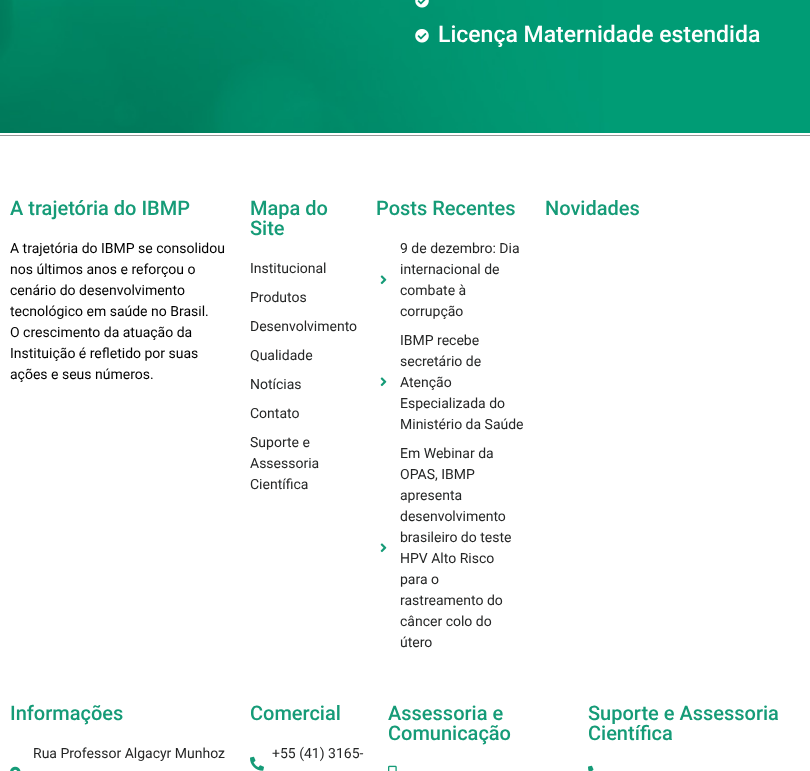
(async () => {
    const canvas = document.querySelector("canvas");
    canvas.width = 810;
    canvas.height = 771;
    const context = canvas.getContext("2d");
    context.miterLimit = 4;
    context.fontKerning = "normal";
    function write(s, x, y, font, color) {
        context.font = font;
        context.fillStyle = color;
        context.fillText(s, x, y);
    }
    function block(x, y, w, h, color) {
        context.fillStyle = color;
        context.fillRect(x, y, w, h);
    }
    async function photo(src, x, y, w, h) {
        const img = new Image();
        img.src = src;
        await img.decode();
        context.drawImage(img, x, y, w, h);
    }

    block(0, 0, 810, 771, "rgb(255, 255, 255)");
    await photo("media/1.png", 0, 0, 810, 133);
    await photo("media/2.png", 415, 0, 14, 8);
    await photo("media/3.png", 415, 29, 14, 14);
    write("Licença Maternidade estendida", 438, 42, "500 23px Roboto", "rgb(255, 255, 255)");
    block(0, 135, 810, 1, "rgb(150, 150, 150)");
    write("A trajetória do IBMP", 10, 215, "500 20px Roboto", "rgb(21, 155, 119)");
    write("A trajetória do IBMP se consolidou", 10, 253, "14px Roboto", "rgb(0, 0, 0)");
    write("nos últimos anos e reforçou o", 10, 274, "14px Roboto", "rgb(0, 0, 0)");
    write("cenário do desenvolvimento", 10, 295, "14px Roboto", "rgb(0, 0, 0)");
    write("tecnológico em saúde no Brasil.", 10, 316, "14px Roboto", "rgb(0, 0, 0)");
    write("O crescimento da atuação da", 10, 337, "14px Roboto", "rgb(0, 0, 0)");
    write("Instituição é refletido por suas", 10, 358, "14px Roboto", "rgb(0, 0, 0)");
    write("ações e seus números.", 10, 379, "14px Roboto", "rgb(0, 0, 0)");
    write("Mapa do", 250, 215, "500 20px Roboto", "rgb(21, 155, 119)");
    write("Site", 250, 235, "500 20px Roboto", "rgb(21, 155, 119)");
    write("Institucional", 250, 273, "14px Roboto", "rgb(37, 38, 38)");
    write("Produtos", 250, 302, "14px Roboto", "rgb(37, 38, 38)");
    write("Desenvolvimento", 250, 331, "14px Roboto", "rgb(37, 38, 38)");
    write("Qualidade", 250, 360, "14px Roboto", "rgb(37, 38, 38)");
    write("Notícias", 250, 389, "14px Roboto", "rgb(37, 38, 38)");
    write("Contato", 250, 418, "14px Roboto", "rgb(37, 38, 38)");
    write("Suporte e", 250, 447, "14px Roboto", "rgb(37, 38, 38)");
    write("Assessoria", 250, 468, "14px Roboto", "rgb(37, 38, 38)");
    write("Científica", 250, 489, "14px Roboto", "rgb(37, 38, 38)");
    write("Posts Recentes", 376, 215, "500 20px Roboto", "rgb(21, 155, 119)");
    await photo("media/4.png", 380, 275, 7, 10);
    write("9 de dezembro: Dia", 400, 253, "14px Roboto", "rgb(37, 38, 38)");
    write("internacional de", 400, 274, "14px Roboto", "rgb(37, 38, 38)");
    write("combate à", 400, 295, "14px Roboto", "rgb(37, 38, 38)");
    write("corrupção", 400, 316, "14px Roboto", "rgb(37, 38, 38)");
    await photo("media/4.png", 380, 377, 7, 10);
    write("IBMP recebe", 400, 345, "14px Roboto", "rgb(37, 38, 38)");
    write("secretário de", 400, 366, "14px Roboto", "rgb(37, 38, 38)");
    write("Atenção", 400, 387, "14px Roboto", "rgb(37, 38, 38)");
    write("Especializada do", 400, 408, "14px Roboto", "rgb(37, 38, 38)");
    write("Ministério da Saúde", 400, 429, "14px Roboto", "rgb(37, 38, 38)");
    await photo("media/4.png", 380, 543, 7, 10);
    write("Em Webinar da", 400, 458, "14px Roboto", "rgb(37, 38, 38)");
    write("OPAS, IBMP", 400, 479, "14px Roboto", "rgb(37, 38, 38)");
    write("apresenta", 400, 500, "14px Roboto", "rgb(37, 38, 38)");
    write("desenvolvimento", 400, 521, "14px Roboto", "rgb(37, 38, 38)");
    write("brasileiro do teste", 400, 542, "14px Roboto", "rgb(37, 38, 38)");
    write("HPV Alto Risco", 400, 563, "14px Roboto", "rgb(37, 38, 38)");
    write("para o", 400, 584, "14px Roboto", "rgb(37, 38, 38)");
    write("rastreamento do", 400, 605, "14px Roboto", "rgb(37, 38, 38)");
    write("câncer colo do", 400, 626, "14px Roboto", "rgb(37, 38, 38)");
    write("útero", 400, 647, "14px Roboto", "rgb(37, 38, 38)");
    write("Novidades", 545, 215, "500 20px Roboto", "rgb(21, 155, 119)");
    write("Informações", 10, 720, "500 20px Roboto", "rgb(21, 155, 119)");
    write("Rua Professor Algacyr Munhoz", 33, 758, "14px Roboto", "rgb(37, 38, 38)");
    await photo("media/5.png", 10, 766, 11, 5);
    write("Comercial", 250, 720, "500 20px Roboto", "rgb(21, 155, 119)");
    write("+55 (41) 3165-", 272, 758, "14px Roboto", "rgb(37, 38, 38)");
    await photo("media/6.png", 250, 756, 14, 15);
    write("Assessoria e", 388, 720, "500 20px Roboto", "rgb(21, 155, 119)");
    write("Comunicação", 388, 740, "500 20px Roboto", "rgb(21, 155, 119)");
    await photo("media/7.png", 388, 765, 9, 6);
    write("Suporte e Assessoria", 588, 720, "500 20px Roboto", "rgb(21, 155, 119)");
    write("Científica", 588, 740, "500 20px Roboto", "rgb(21, 155, 119)");
    await photo("media/8.png", 588, 765, 6, 6);
})();
